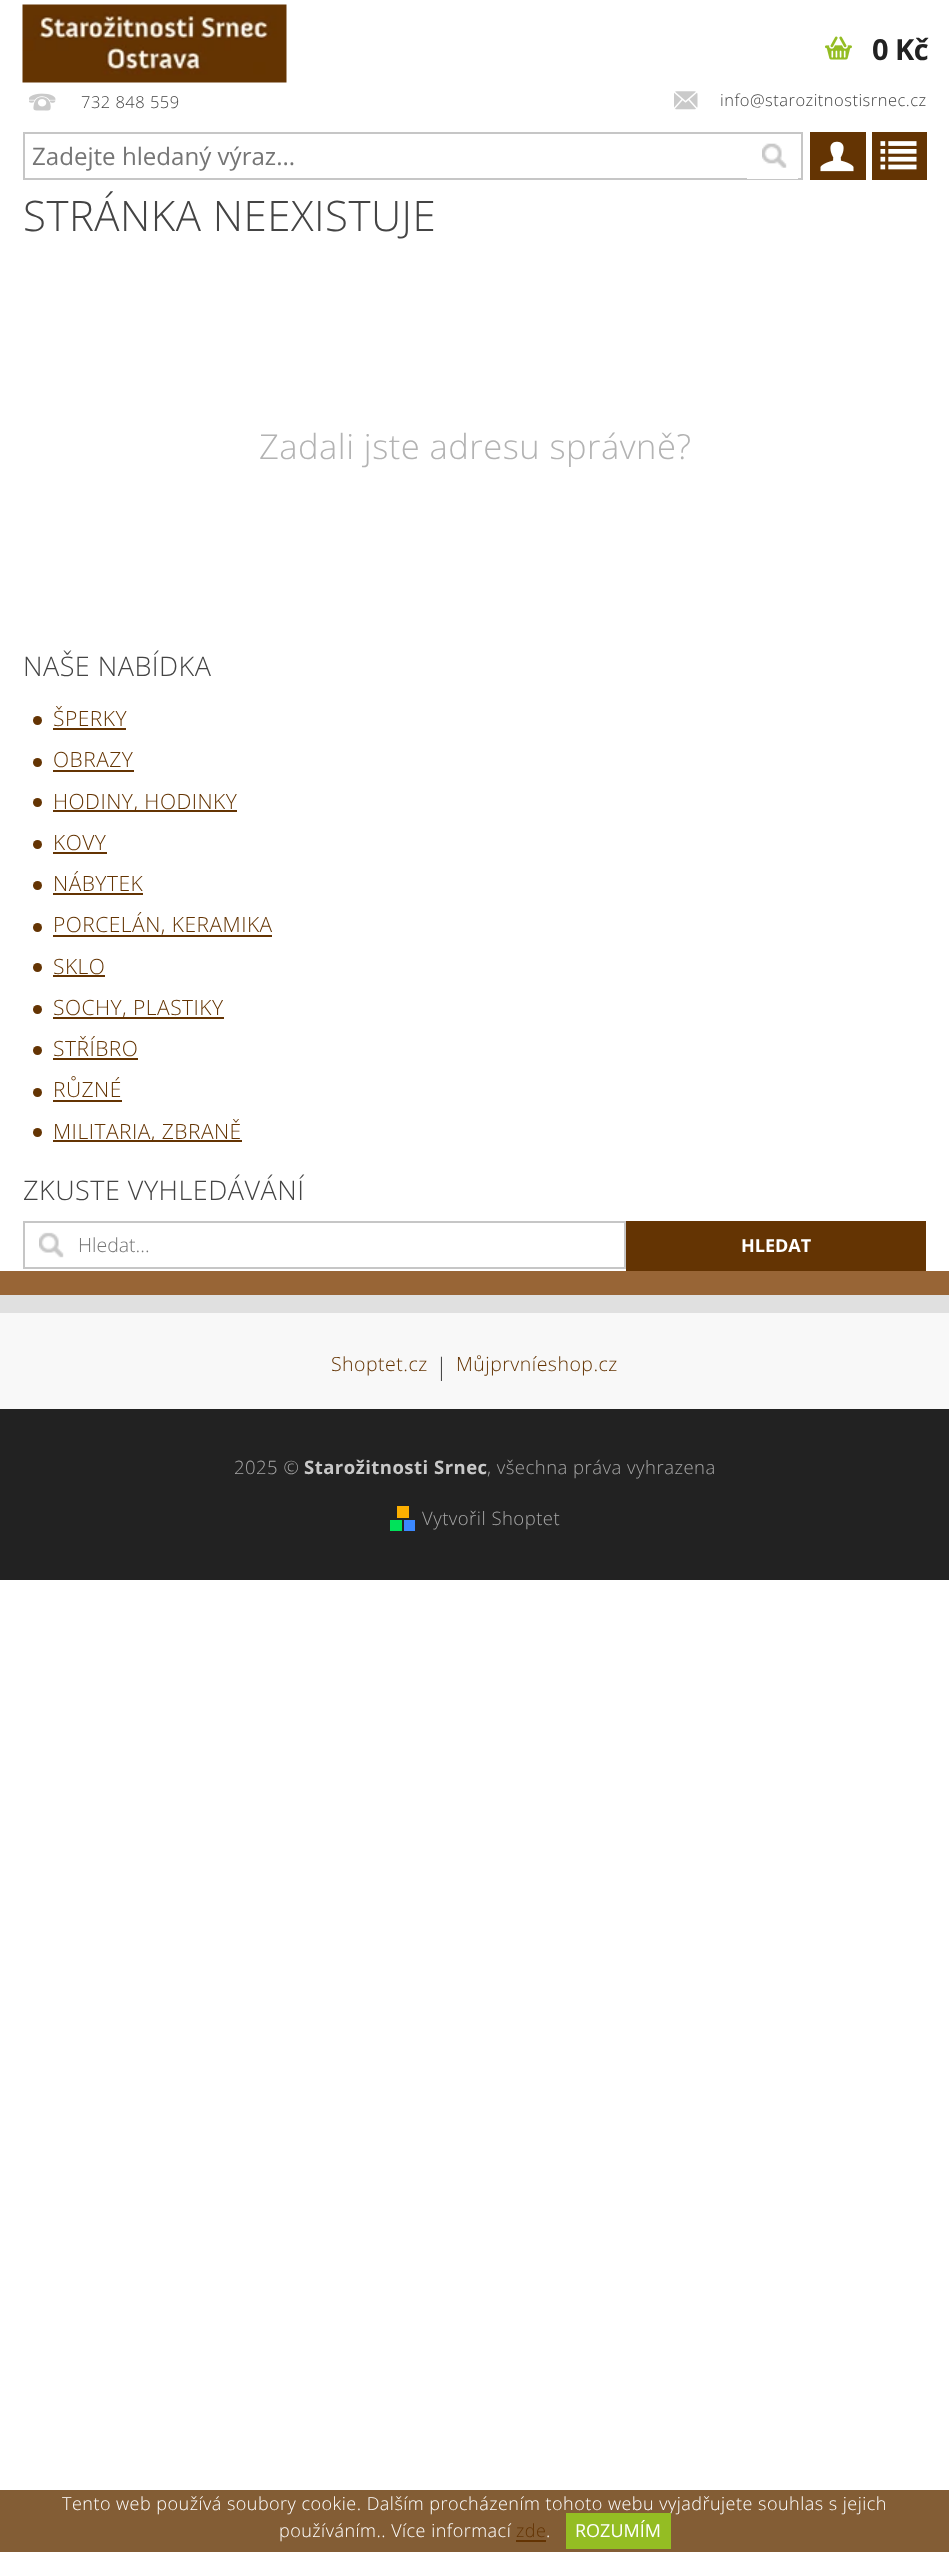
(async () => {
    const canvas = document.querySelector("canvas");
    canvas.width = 949;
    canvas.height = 2552;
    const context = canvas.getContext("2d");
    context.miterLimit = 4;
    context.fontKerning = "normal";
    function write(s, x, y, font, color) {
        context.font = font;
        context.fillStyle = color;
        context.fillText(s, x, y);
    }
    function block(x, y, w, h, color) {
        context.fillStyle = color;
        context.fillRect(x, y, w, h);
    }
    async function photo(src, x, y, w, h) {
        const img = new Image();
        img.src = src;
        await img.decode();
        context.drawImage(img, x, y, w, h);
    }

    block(0, 0, 949, 2552, "rgb(255, 255, 255)");
    block(0, 1271, 949, 24, "rgb(152, 101, 54)");
    await photo("media/1.png", 22, 4, 265, 79);
    await photo("media/2.png", 825, 36, 27, 24);
    context.letterSpacing = "-0.5px";
    write("0 Kč", 872, 60, "bold 29px Open Sans", "rgb(34, 34, 34)");
    block(810, 132, 56, 48, "rgb(100, 52, 3)");
    await photo("media/3.png", 820, 141, 34, 31);
    await photo("media/4.png", 29, 93, 27, 18);
    context.letterSpacing = "0.48px";
    write("732 848 559", 81, 108, "300 16.5px Open Sans", "rgb(68, 68, 68)");
    await photo("media/5.png", 674, 91, 24, 19);
    write("info@starozitnostisrnec.cz", 720, 106, "300 16.5px Open Sans", "rgb(68, 68, 68)");
    context.strokeStyle = "rgb(198, 198, 198)";
    context.lineWidth = 2;
    context.strokeRect(24, 133, 778, 46);
    context.letterSpacing = "0px";
    write("Zadejte hledaný výraz...", 32, 165, "24.1px Open Sans", "rgb(117, 117, 117)");
    block(747, 178, 51, 1, "rgb(255, 255, 255)");
    await photo("media/6.png", 762, 143, 25, 25);
    block(872, 132, 55, 48, "rgb(100, 52, 3)");
    await photo("media/7.png", 880, 141, 37, 29);
    context.letterSpacing = "0.48px";
    write("STRÁNKA NEEXISTUJE", 23, 231, "300 42px Open Sans", "rgb(68, 68, 68)");
    write("Zadali jste adresu správně?", 259, 459, "300 34.5px Open Sans", "rgb(179, 179, 179)");
    write("NAŠE NABÍDKA", 23, 676, "300 27px Open Sans", "rgb(68, 68, 68)");
    context.fillStyle = "rgb(100, 52, 3)";
    context.beginPath();
    context.arc(37.5, 720.5, 4.5, 0, Math.PI * 2);
    context.fill();
    write("ŠPERKY", 53, 726, "300 21px Open Sans", "rgb(100, 52, 3)");
    block(53, 728, 73, 2, "rgb(100, 52, 3)");
    context.beginPath();
    context.arc(37.5, 762.5, 4.5, 0, Math.PI * 2);
    context.fill();
    write("OBRAZY", 53, 767, "300 21px Open Sans", "rgb(100, 52, 3)");
    block(53, 770, 81, 2, "rgb(100, 52, 3)");
    context.beginPath();
    context.arc(37.5, 802.5, 4.5, 0, Math.PI * 2);
    context.fill();
    block(53, 810, 184, 2, "rgb(100, 52, 3)");
    write("HODINY, HODINKY", 53, 809, "300 21px Open Sans", "rgb(100, 52, 3)");
    context.beginPath();
    context.arc(37.5, 844.5, 4.5, 0, Math.PI * 2);
    context.fill();
    write("KOVY", 53, 850, "300 21px Open Sans", "rgb(100, 52, 3)");
    block(53, 852, 54, 2, "rgb(100, 52, 3)");
    context.beginPath();
    context.arc(37.5, 885.5, 4.5, 0, Math.PI * 2);
    context.fill();
    write("NÁBYTEK", 53, 891, "300 21px Open Sans", "rgb(100, 52, 3)");
    block(53, 893, 90, 2, "rgb(100, 52, 3)");
    context.beginPath();
    context.arc(37.5, 927.5, 4.5, 0, Math.PI * 2);
    context.fill();
    write("PORCELÁN, KERAMIKA", 53, 932, "300 21px Open Sans", "rgb(100, 52, 3)");
    block(53, 935, 219, 2, "rgb(100, 52, 3)");
    context.beginPath();
    context.arc(37.5, 967.5, 4.5, 0, Math.PI * 2);
    context.fill();
    write("SKLO", 53, 974, "300 21px Open Sans", "rgb(100, 52, 3)");
    block(53, 975, 52, 2, "rgb(100, 52, 3)");
    context.beginPath();
    context.arc(37.5, 1009.5, 4.5, 0, Math.PI * 2);
    context.fill();
    block(53, 1017, 171, 2, "rgb(100, 52, 3)");
    write("SOCHY, PLASTIKY", 53, 1015, "300 21px Open Sans", "rgb(100, 52, 3)");
    context.beginPath();
    context.arc(37.5, 1050.5, 4.5, 0, Math.PI * 2);
    context.fill();
    write("STŘÍBRO", 53, 1056, "300 21px Open Sans", "rgb(100, 52, 3)");
    block(53, 1058, 85, 2, "rgb(100, 52, 3)");
    context.beginPath();
    context.arc(37.5, 1092.5, 4.5, 0, Math.PI * 2);
    context.fill();
    write("RŮZNÉ", 53, 1097, "300 21px Open Sans", "rgb(100, 52, 3)");
    block(53, 1100, 69, 2, "rgb(100, 52, 3)");
    context.beginPath();
    context.arc(37.5, 1132.5, 4.5, 0, Math.PI * 2);
    context.fill();
    block(53, 1140, 189, 2, "rgb(100, 52, 3)");
    write("MILITARIA, ZBRANĚ", 53, 1139, "300 21px Open Sans", "rgb(100, 52, 3)");
    write("ZKUSTE VYHLEDÁVÁNÍ", 23, 1200, "300 27px Open Sans", "rgb(68, 68, 68)");
    await photo("media/8.png", 39, 1232, 25, 26);
    context.strokeRect(24, 1222, 601, 46);
    context.letterSpacing = "0px";
    write("Hledat...", 78, 1252, "300 19.5px Open Sans", "rgb(117, 117, 117)");
    block(626, 1221, 300, 50, "rgb(100, 52, 3)");
    write("HLEDAT", 741, 1252, "bold 18px Open Sans", "rgb(255, 255, 255)");
    block(0, 1313, 949, 96, "rgb(248, 248, 248)");
    block(0, 1295, 949, 18, "rgb(224, 224, 224)");
    context.letterSpacing = "0.48px";
    write("Shoptet.cz", 331, 1371, "300 19.5px Open Sans", "rgb(100, 52, 3)");
    write("|", 435, 1375, "300 24px Open Sans", "rgb(68, 68, 68)");
    write("Můjprvníeshop.cz", 456, 1371, "300 19.5px Open Sans", "rgb(100, 52, 3)");
    block(0, 1409, 949, 171, "rgb(34, 34, 34)");
    write("2025 ©", 234, 1474, "300 18.5px Open Sans", "rgb(166, 166, 166)");
    write("Starožitnosti Srnec", 304, 1474, "bold 18.5px Open Sans", "rgb(201, 201, 201)");
    write(", všechna práva vyhrazena", 487, 1474, "300 18.5px Open Sans", "rgb(166, 166, 166)");
    block(397, 1506, 12, 12, "rgb(252, 175, 0)");
    block(390, 1520, 12, 11, "rgb(0, 226, 90)");
    block(404, 1520, 11, 11, "rgb(59, 136, 255)");
    write("Vytvořil Shoptet", 422, 1525, "300 18.5px Open Sans", "rgb(166, 166, 166)");
    block(0, 2490, 949, 62, "rgb(131, 93, 53)");
    write("Tento web používá soubory cookie. Dalším procházením tohoto webu vyjadřujete souhlas s jejich", 62, 2510, "300 18px Open Sans", "rgb(255, 255, 255)");
    write("používáním.. Více informací", 279, 2537, "300 18px Open Sans", "rgb(255, 255, 255)");
    write("zde", 516, 2537, "300 18px Open Sans", "rgb(100, 52, 3)");
    block(516, 2540, 30, 2, "rgb(100, 52, 3)");
    write(".", 546, 2537, "300 18px Open Sans", "rgb(255, 255, 255)");
    block(566, 2513, 105, 36, "rgb(148, 189, 35)");
    context.letterSpacing = "0px";
    write("ROZUMÍM", 575, 2537, "18px Open Sans", "rgb(255, 255, 255)");
})();
